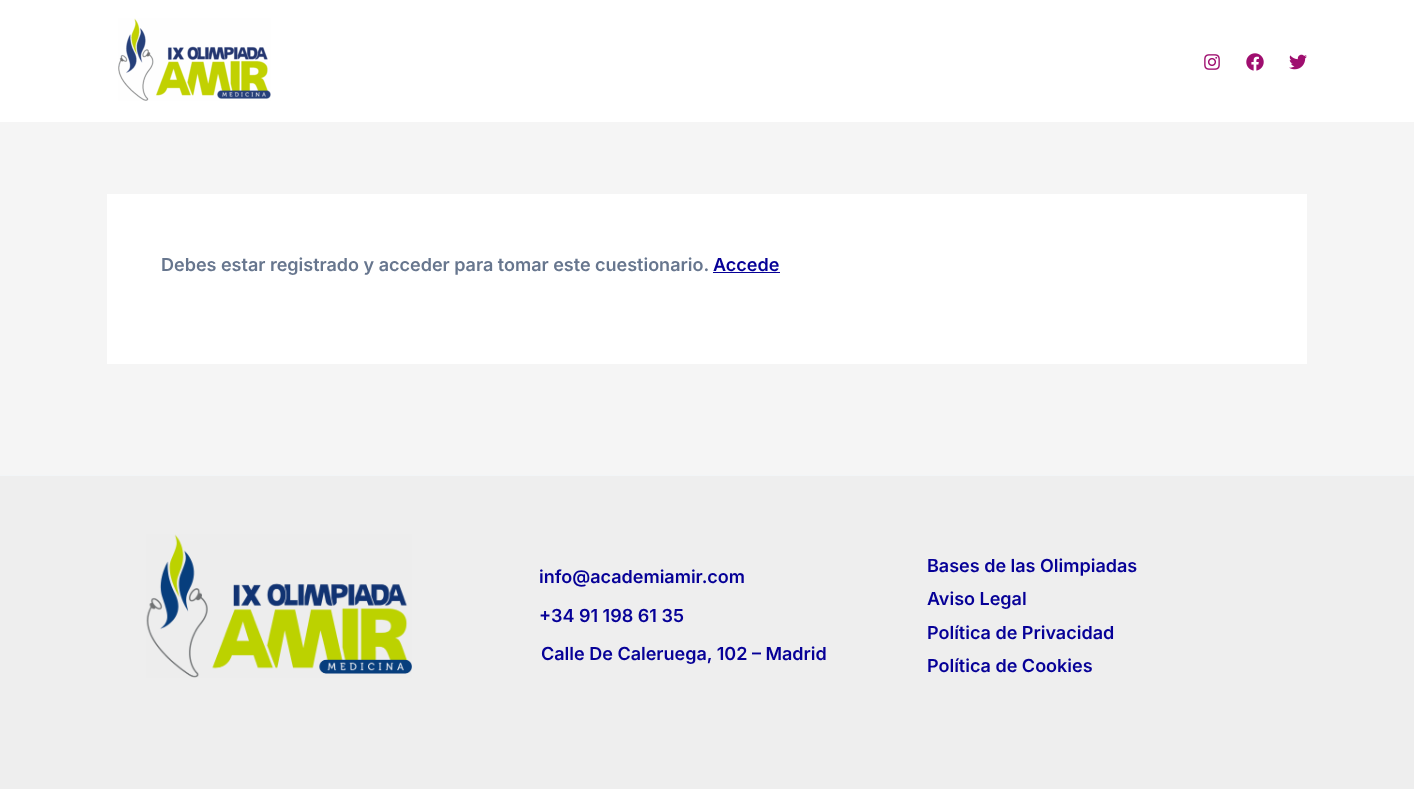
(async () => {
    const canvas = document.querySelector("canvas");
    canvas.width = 1414;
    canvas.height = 789;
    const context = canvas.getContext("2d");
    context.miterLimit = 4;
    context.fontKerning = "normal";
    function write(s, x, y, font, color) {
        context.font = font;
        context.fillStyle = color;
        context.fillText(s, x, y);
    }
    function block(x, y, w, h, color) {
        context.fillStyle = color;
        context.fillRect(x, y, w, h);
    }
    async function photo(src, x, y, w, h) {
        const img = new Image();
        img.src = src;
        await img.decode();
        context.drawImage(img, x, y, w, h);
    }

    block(0, 0, 1414, 789, "rgb(245, 245, 245)");
    block(0, 0, 1414, 122, "rgb(255, 255, 255)");
    await photo("media/1.png", 118, 18, 153, 83);
    await photo("media/2.png", 1204, 54, 16, 16);
    await photo("media/3.png", 1246, 53, 18, 18);
    await photo("media/4.png", 1289, 54, 18, 16);
    block(107, 194, 1200, 170, "rgb(255, 255, 255)");
    write("Debes estar registrado y acceder para tomar este cuestionario.", 161, 271, "600 18px Inter", "rgb(103, 118, 142)");
    write("Accede", 713, 271, "600 18px Inter", "rgb(6, 0, 151)");
    block(713, 272, 67, 1, "rgb(6, 0, 151)");
    block(0, 476, 1414, 313, "rgb(238, 238, 238)");
    block(0, 475, 1414, 1, "rgb(242, 245, 247)");
    await photo("media/5.png", 146, 534, 266, 144);
    write("info@academiamir.com", 539, 583, "600 18px Inter", "rgb(6, 0, 151)");
    write("+34 91 198 61 35", 539, 622, "600 18px Inter", "rgb(6, 0, 151)");
    write("Calle De Caleruega, 102 – Madrid", 541, 660, "600 18px Inter", "rgb(6, 0, 151)");
    write("Bases de las Olimpiadas", 927, 572, "600 18px Inter", "rgb(6, 0, 151)");
    write("Aviso Legal", 927, 605, "600 18px Inter", "rgb(6, 0, 151)");
    write("Política de Privacidad", 927, 639, "600 18px Inter", "rgb(6, 0, 151)");
    write("Política de Cookies", 927, 672, "600 18px Inter", "rgb(6, 0, 151)");
})();
